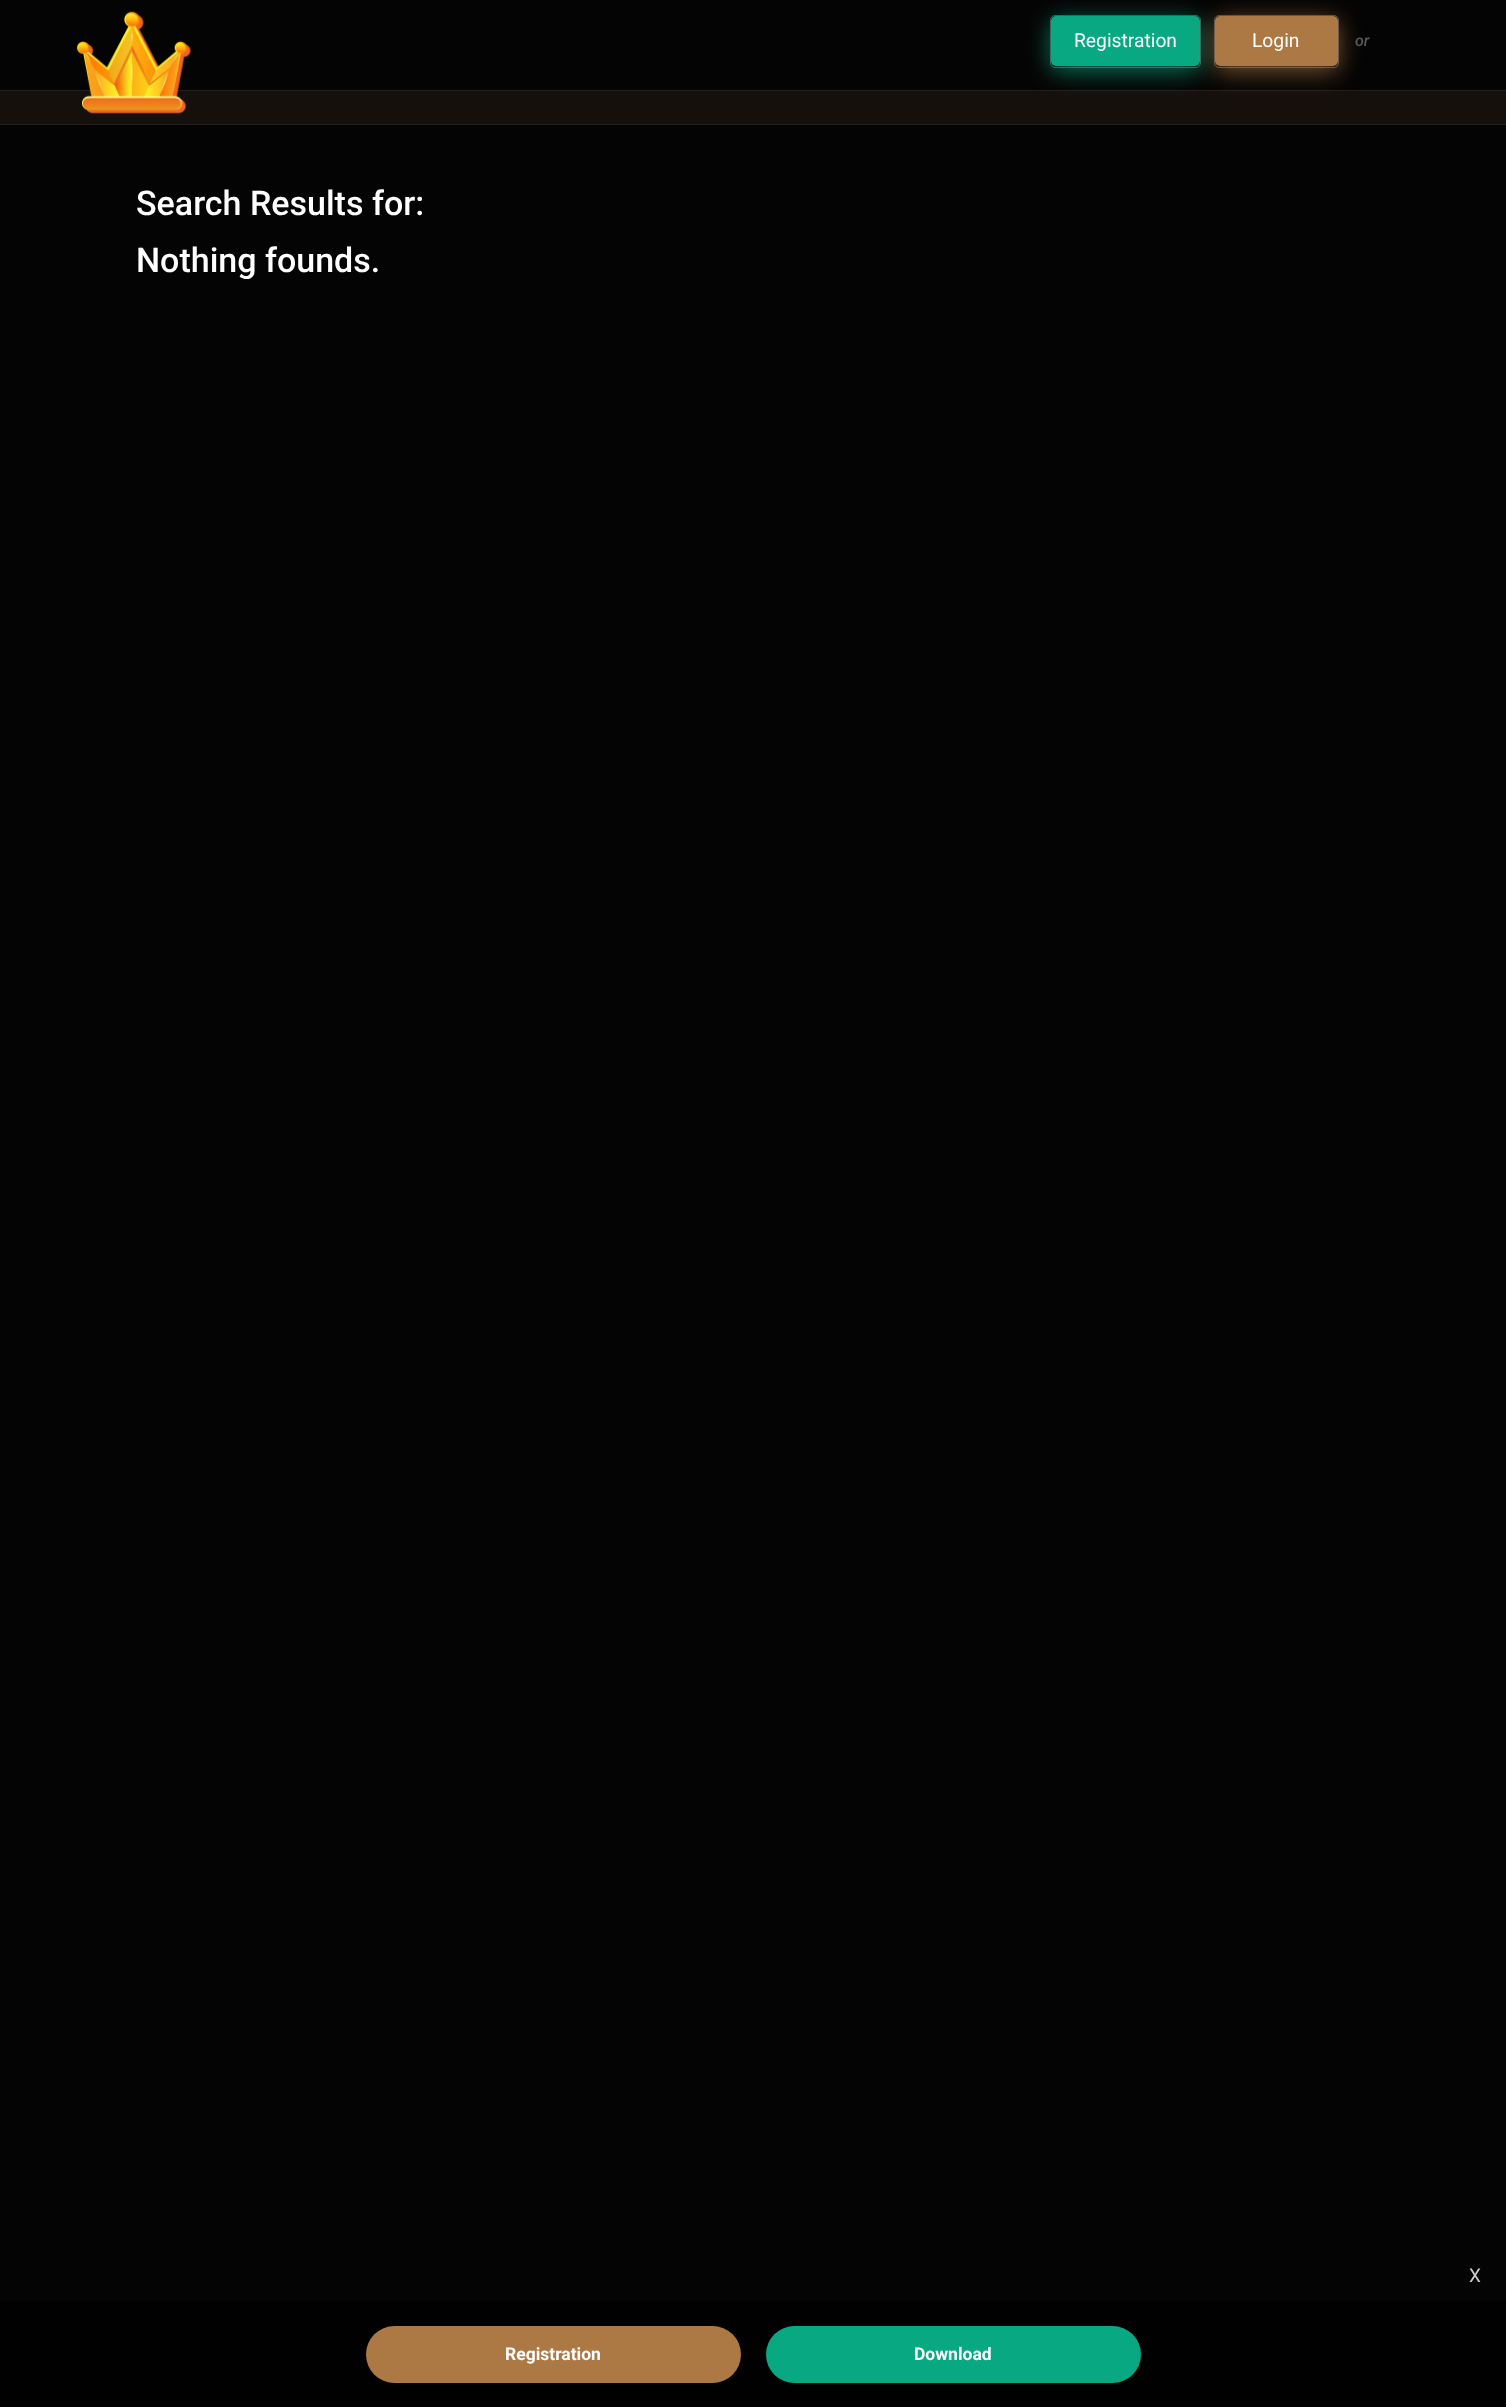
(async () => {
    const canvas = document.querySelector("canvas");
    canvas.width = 1506;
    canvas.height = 2407;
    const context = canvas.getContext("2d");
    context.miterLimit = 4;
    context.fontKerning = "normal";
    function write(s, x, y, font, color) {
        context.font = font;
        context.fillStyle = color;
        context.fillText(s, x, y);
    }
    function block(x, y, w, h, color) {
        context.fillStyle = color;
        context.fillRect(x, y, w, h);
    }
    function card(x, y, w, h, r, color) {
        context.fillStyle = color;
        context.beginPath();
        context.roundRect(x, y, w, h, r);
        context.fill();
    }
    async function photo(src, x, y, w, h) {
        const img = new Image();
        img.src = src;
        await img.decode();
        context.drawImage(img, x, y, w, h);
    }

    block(0, 0, 1506, 2407, "rgb(5, 4, 4)");
    block(0, 91, 1506, 33, "rgb(22, 16, 13)");
    block(0, 90, 1506, 1, "rgb(36, 30, 28)");
    await photo("media/1.png", 77, 11, 114, 103);
    context.beginPath();
    context.roundRect(1050.5, 15.5, 150, 52, 4.5);
    context.strokeStyle = "rgb(80, 79, 79)";
    context.stroke();
    card(1051, 16, 149, 50, 5, "rgb(8, 168, 130)");
    context.save();
    context.beginPath();
    context.moveTo(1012, 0);
    context.lineTo(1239, 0);
    context.lineTo(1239, 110);
    context.lineTo(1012, 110);
    context.closePath();
    context.moveTo(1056, 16);
    context.lineTo(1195, 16);
    context.bezierCurveTo(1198, 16, 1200, 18, 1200, 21);
    context.lineTo(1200, 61);
    context.bezierCurveTo(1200, 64, 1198, 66, 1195, 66);
    context.lineTo(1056, 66);
    context.bezierCurveTo(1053, 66, 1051, 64, 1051, 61);
    context.lineTo(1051, 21);
    context.bezierCurveTo(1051, 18, 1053, 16, 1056, 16);
    context.closePath();
    context.clip("evenodd");
    context.fillStyle = "rgba(8, 168, 130, 0.7)";
    context.filter = "blur(12.5px)";
    context.beginPath();
    context.roundRect(1051, 21, 149, 50, 5);
    context.fill();
    context.filter = "none";
    context.restore();
    write("Registration", 1074, 47, "19.25px Roboto", "rgb(255, 255, 255)");
    context.beginPath();
    context.roundRect(1214.5, 15.5, 124, 52, 4.5);
    context.strokeStyle = "rgba(255, 255, 255, 0.3)";
    context.stroke();
    card(1215, 16, 123, 50, 5, "rgb(172, 120, 67)");
    context.save();
    context.beginPath();
    context.moveTo(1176, 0);
    context.lineTo(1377, 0);
    context.lineTo(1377, 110);
    context.lineTo(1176, 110);
    context.closePath();
    context.moveTo(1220, 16);
    context.lineTo(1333, 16);
    context.bezierCurveTo(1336, 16, 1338, 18, 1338, 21);
    context.lineTo(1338, 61);
    context.bezierCurveTo(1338, 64, 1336, 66, 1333, 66);
    context.lineTo(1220, 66);
    context.bezierCurveTo(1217, 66, 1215, 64, 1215, 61);
    context.lineTo(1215, 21);
    context.bezierCurveTo(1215, 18, 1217, 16, 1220, 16);
    context.closePath();
    context.clip("evenodd");
    context.fillStyle = "rgba(172, 120, 67, 0.7)";
    context.filter = "blur(12.5px)";
    context.beginPath();
    context.roundRect(1215, 21, 123, 50, 5);
    context.fill();
    context.filter = "none";
    context.restore();
    write("Login", 1252, 47, "19.25px Roboto", "rgb(255, 255, 255)");
    write("or", 1355, 46, "italic 500 16px Roboto", "rgb(85, 90, 96)");
    block(0, 124, 1506, 1, "rgb(36, 30, 28)");
    write("Search Results for:", 136, 215, "500 34px Roboto", "rgb(255, 255, 255)");
    write("Nothing founds.", 136, 272, "500 34px Roboto", "rgb(255, 255, 255)");
    block(0, 2301, 1506, 106, "rgb(1, 1, 1)");
    write("X", 1469, 2282, "19px Roboto", "rgb(205, 206, 207)");
    card(366, 2326, 375, 57, 28.5, "rgb(172, 120, 67)");
    write("Registration", 505, 2360, "bold 17.5px Roboto", "rgb(255, 255, 255)");
    card(766, 2326, 375, 57, 28.5, "rgb(8, 168, 130)");
    write("Download", 914, 2360, "bold 17.5px Roboto", "rgb(255, 255, 255)");
})();
